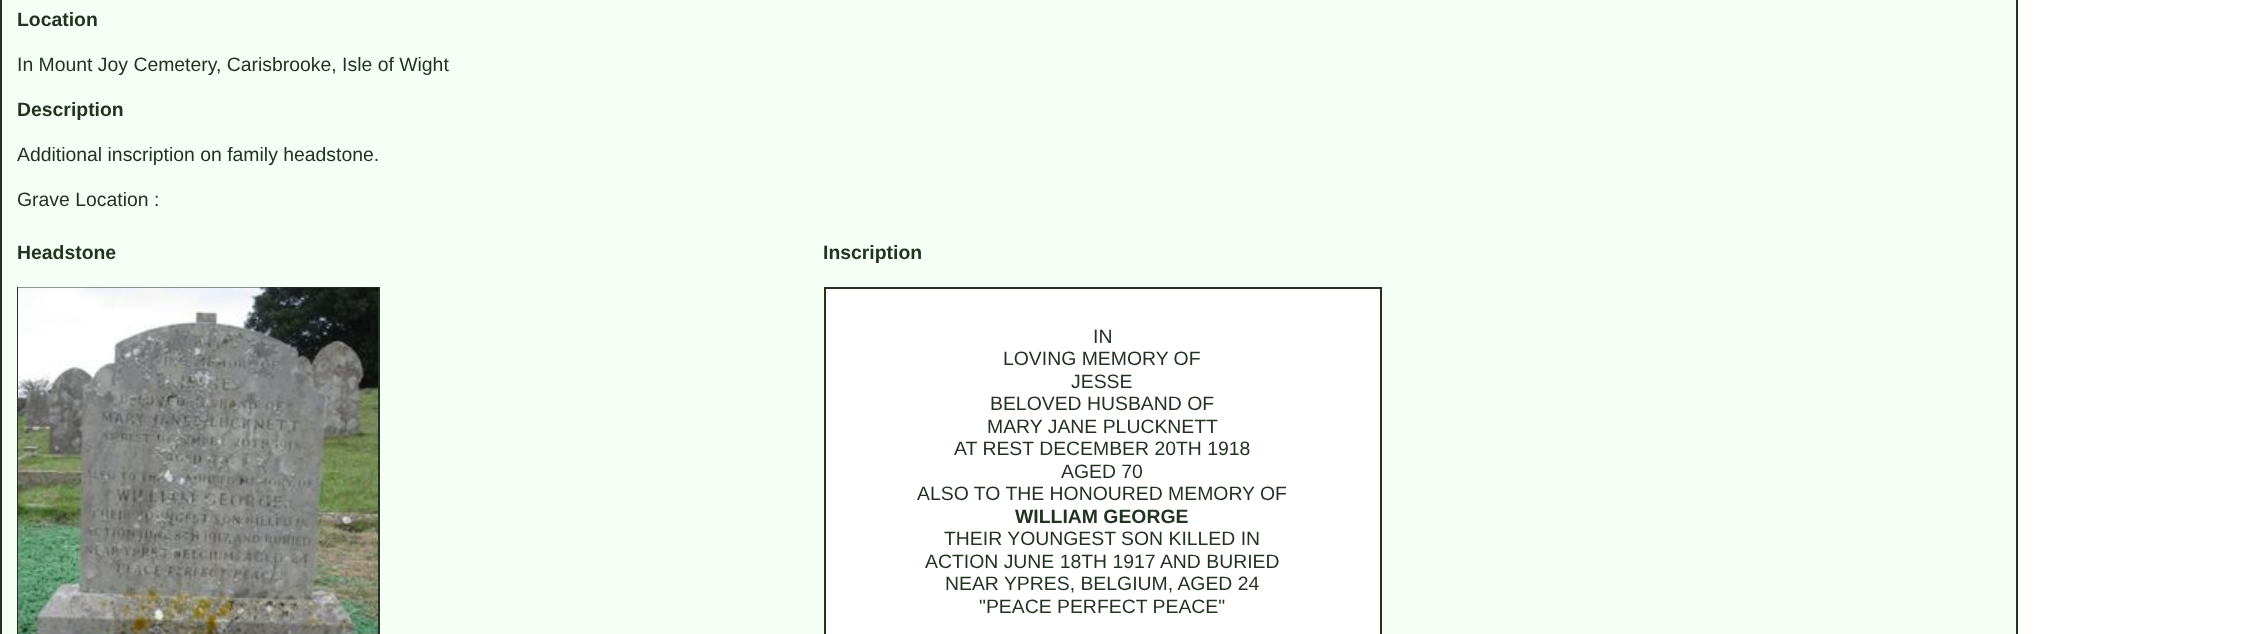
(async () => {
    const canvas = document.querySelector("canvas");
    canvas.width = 2241;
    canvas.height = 634;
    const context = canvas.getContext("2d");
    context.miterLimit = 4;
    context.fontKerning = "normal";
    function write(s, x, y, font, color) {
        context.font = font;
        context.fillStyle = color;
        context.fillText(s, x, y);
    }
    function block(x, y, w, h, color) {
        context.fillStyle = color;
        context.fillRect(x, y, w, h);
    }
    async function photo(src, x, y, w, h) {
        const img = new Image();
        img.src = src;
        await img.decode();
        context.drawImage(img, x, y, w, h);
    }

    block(0, 0, 2241, 634, "rgb(255, 255, 255)");
    context.fillStyle = "rgb(246, 255, 246)";
    context.beginPath();
    context.rect(1, -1, 2016, 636);
    context.fill();
    context.strokeStyle = "rgb(34, 51, 34)";
    context.lineWidth = 2;
    context.stroke();
    write("Location", 17, 26, "bold 19.4px Liberation Sans", "rgb(34, 51, 34)");
    write("In Mount Joy Cemetery, Carisbrooke, Isle of Wight", 17, 71, "19.4px Liberation Sans", "rgb(34, 51, 34)");
    write("Description", 17, 116, "bold 19.4px Liberation Sans", "rgb(34, 51, 34)");
    write("Additional inscription on family headstone.", 17, 161, "19.4px Liberation Sans", "rgb(34, 51, 34)");
    write("Grave Location :", 17, 206, "19.4px Liberation Sans", "rgb(34, 51, 34)");
    write("Headstone", 17, 259, "bold 19.4px Liberation Sans", "rgb(34, 51, 34)");
    context.strokeRect(18, 288, 361, 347);
    await photo("media/1.png", 18, 287, 360, 347);
    write("Inscription", 823, 259, "bold 19.4px Liberation Sans", "rgb(34, 51, 34)");
    context.fillStyle = "rgb(255, 255, 255)";
    context.beginPath();
    context.rect(825, 288, 556, 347);
    context.fill();
    context.stroke();
    write("IN", 1093, 343, "19.4px Liberation Sans", "rgb(34, 51, 34)");
    write("LOVING MEMORY OF", 1003, 365, "19.4px Liberation Sans", "rgb(34, 51, 34)");
    write("JESSE", 1071, 388, "19.4px Liberation Sans", "rgb(34, 51, 34)");
    write("BELOVED HUSBAND OF", 990, 410, "19.4px Liberation Sans", "rgb(34, 51, 34)");
    write("MARY JANE PLUCKNETT", 987, 433, "19.4px Liberation Sans", "rgb(34, 51, 34)");
    write("AT REST DECEMBER 20TH 1918", 954, 455, "19.4px Liberation Sans", "rgb(34, 51, 34)");
    write("AGED 70", 1061, 478, "19.4px Liberation Sans", "rgb(34, 51, 34)");
    write("ALSO TO THE HONOURED MEMORY OF", 917, 500, "19.4px Liberation Sans", "rgb(34, 51, 34)");
    write("WILLIAM GEORGE", 1015, 523, "bold 19.4px Liberation Sans", "rgb(34, 51, 34)");
    write("THEIR YOUNGEST SON KILLED IN", 944, 545, "19.4px Liberation Sans", "rgb(34, 51, 34)");
    write("ACTION JUNE 18TH 1917 AND BURIED", 925, 568, "19.4px Liberation Sans", "rgb(34, 51, 34)");
    write("NEAR YPRES, BELGIUM, AGED 24", 945, 590, "19.4px Liberation Sans", "rgb(34, 51, 34)");
    write("\"PEACE PERFECT PEACE\"", 979, 613, "19.4px Liberation Sans", "rgb(34, 51, 34)");
})();
